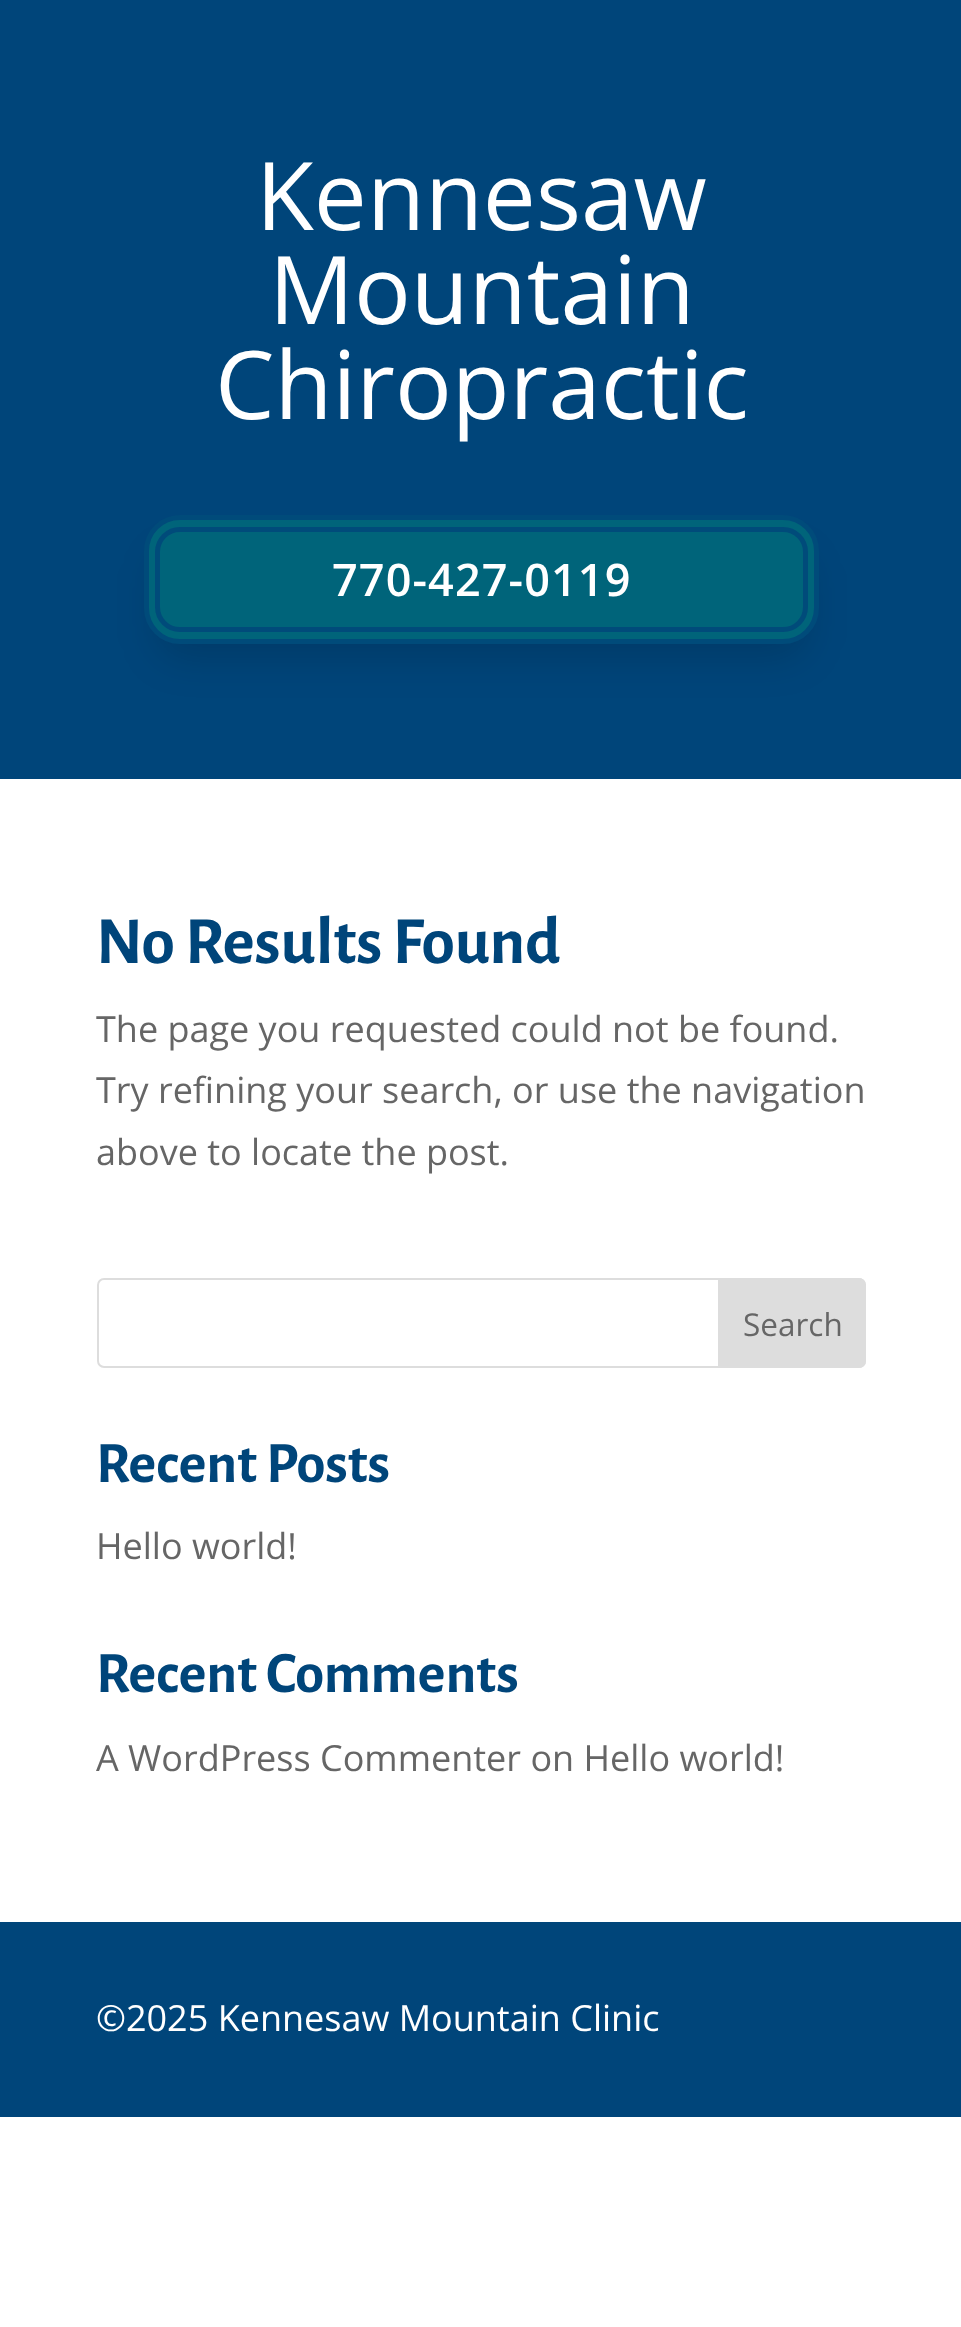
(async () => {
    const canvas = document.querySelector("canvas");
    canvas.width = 961;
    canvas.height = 2327;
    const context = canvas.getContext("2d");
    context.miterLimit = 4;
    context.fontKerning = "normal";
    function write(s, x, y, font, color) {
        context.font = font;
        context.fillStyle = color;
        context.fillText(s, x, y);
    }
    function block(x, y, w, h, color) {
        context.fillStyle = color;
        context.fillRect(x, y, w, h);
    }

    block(0, 0, 961, 2327, "rgb(255, 255, 255)");
    block(0, 0, 961, 779, "rgb(0, 69, 122)");
    write("Kennesaw", 256, 230, "94.5px Open Sans", "rgb(255, 255, 255)");
    write("Mountain", 269, 324, "94.5px Open Sans", "rgb(255, 255, 255)");
    write("Chiropractic", 215, 419, "94.5px Open Sans", "rgb(255, 255, 255)");
    context.fillStyle = "rgba(0, 0, 0, 0.15)";
    context.filter = "blur(20px)";
    context.beginPath();
    context.roundRect(158, 556, 648, 101, 23);
    context.fill();
    context.filter = "none";
    context.fillStyle = "rgb(0, 100, 122)";
    context.beginPath();
    context.roundRect(146.5, 517.5, 670, 124, 33.5);
    context.fill();
    context.strokeStyle = "rgb(0, 75, 122)";
    context.lineWidth = 5;
    context.stroke();
    context.beginPath();
    context.roundRect(157.5, 529.5, 648, 100, 22.5);
    context.stroke();
    context.letterSpacing = "1.1px";
    write("770-427-0119", 332, 596, "600 45px Open Sans", "rgb(255, 255, 255)");
    context.letterSpacing = "0px";
    write("No Results Found", 96, 963, "bold 67.5px Alegreya Sans", "rgb(0, 69, 122)");
    write("The page you requested could not be found.", 96, 1042, "36px Open Sans", "rgb(102, 102, 102)");
    write("Try refining your search, or use the navigation", 96, 1103, "36px Open Sans", "rgb(102, 102, 102)");
    write("above to locate the post.", 96, 1165, "36px Open Sans", "rgb(102, 102, 102)");
    context.beginPath();
    context.roundRect(98, 1279, 767, 88, 6);
    context.strokeStyle = "rgb(221, 221, 221)";
    context.lineWidth = 2;
    context.stroke();
    context.fillStyle = "rgb(221, 221, 221)";
    context.beginPath();
    context.roundRect(719, 1279, 146, 88, [0, 6, 6, 0]);
    context.fill();
    context.stroke();
    write("Search", 743, 1336, "31.5px Open Sans", "rgb(102, 102, 102)");
    write("Recent Posts", 96, 1482, "bold 58.5px Alegreya Sans", "rgb(0, 69, 122)");
    write("Hello world!", 96, 1559, "36px Open Sans", "rgb(102, 102, 102)");
    write("Recent Comments", 96, 1692, "bold 58.5px Alegreya Sans", "rgb(0, 69, 122)");
    write("A WordPress Commenter on Hello world!", 96, 1771, "36px Open Sans", "rgb(102, 102, 102)");
    block(0, 1922, 961, 195, "rgb(0, 69, 122)");
    write("©2025 Kennesaw Mountain Clinic", 96, 2031, "36px Open Sans", "rgb(255, 255, 255)");
})();
